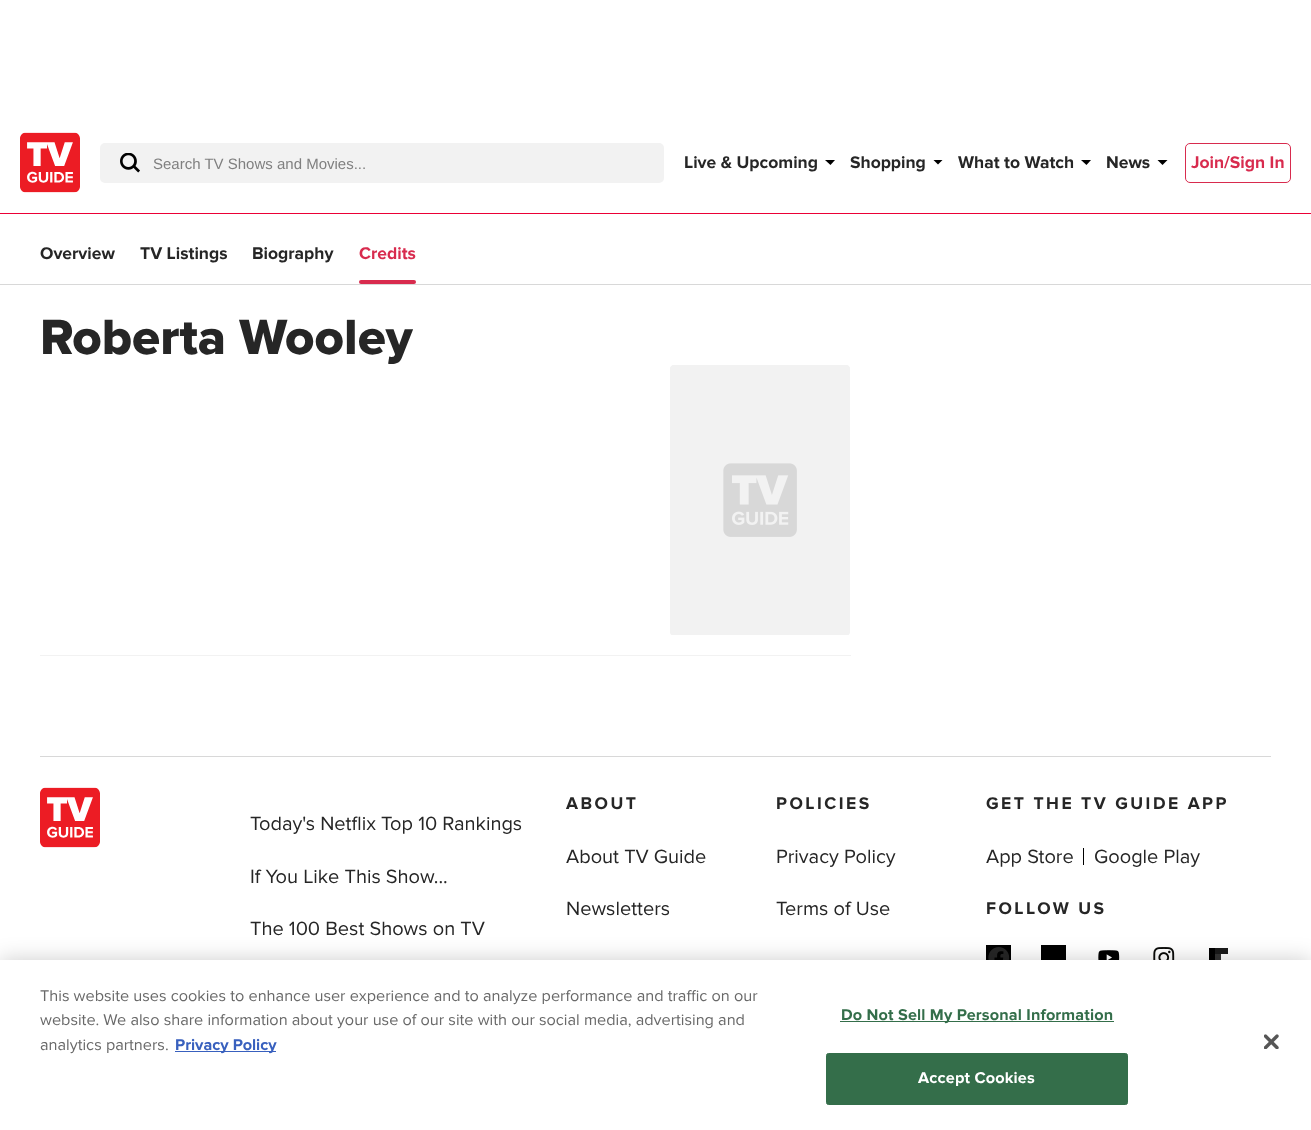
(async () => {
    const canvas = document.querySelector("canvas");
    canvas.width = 1311;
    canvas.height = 1130;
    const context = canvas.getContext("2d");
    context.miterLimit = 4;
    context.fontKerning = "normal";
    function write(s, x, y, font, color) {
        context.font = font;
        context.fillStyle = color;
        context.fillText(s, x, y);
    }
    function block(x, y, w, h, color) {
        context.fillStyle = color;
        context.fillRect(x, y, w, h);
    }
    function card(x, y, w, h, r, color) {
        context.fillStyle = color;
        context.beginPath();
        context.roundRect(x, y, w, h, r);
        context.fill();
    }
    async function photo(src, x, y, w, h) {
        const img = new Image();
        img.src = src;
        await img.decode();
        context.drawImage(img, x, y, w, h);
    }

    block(0, 0, 1311, 1130, "rgb(255, 255, 255)");
    block(0, 213, 1311, 1, "rgb(235, 0, 54)");
    await photo("media/1.png", 20, 132, 60, 61);
    card(100, 143, 564, 40, 5, "rgb(242, 242, 242)");
    await photo("media/2.png", 120, 153, 20, 20);
    write("Search TV Shows and Movies...", 153, 169, "15px Liberation Sans", "rgb(128, 128, 128)");
    write("Live & Upcoming", 684, 168, "bold 17.5px Proxima Nova", "rgb(38, 38, 38)");
    context.fillStyle = "rgb(0, 0, 0)";
    context.beginPath();
    context.moveTo(825, 160);
    context.lineTo(830.5, 165);
    context.lineTo(835, 160);
    context.closePath();
    context.fill("evenodd");
    write("Shopping", 850, 168, "bold 17.5px Proxima Nova", "rgb(38, 38, 38)");
    context.fillStyle = "rgb(0, 0, 0)";
    context.beginPath();
    context.moveTo(942.5, 160);
    context.lineTo(938, 164.5);
    context.lineTo(933.5, 160);
    context.closePath();
    context.fill();
    write("What to Watch", 958, 168, "bold 17.5px Proxima Nova", "rgb(38, 38, 38)");
    context.fillStyle = "rgb(0, 0, 0)";
    context.beginPath();
    context.moveTo(1081, 160);
    context.lineTo(1086.5, 165);
    context.lineTo(1091, 160);
    context.closePath();
    context.fill("evenodd");
    write("News", 1106, 168, "bold 17.5px Proxima Nova", "rgb(38, 38, 38)");
    context.fillStyle = "rgb(0, 0, 0)";
    context.beginPath();
    context.moveTo(1167.5, 160);
    context.lineTo(1157.5, 160);
    context.lineTo(1162.5, 165);
    context.closePath();
    context.fill();
    context.beginPath();
    context.roundRect(1185.5, 143.5, 105, 39, 4.5);
    context.strokeStyle = "rgb(216, 43, 78)";
    context.stroke();
    write("Join/Sign In", 1191, 168, "bold 17.5px Proxima Nova", "rgb(216, 43, 78)");
    block(0, 284, 1311, 1, "rgb(216, 216, 216)");
    write("Overview", 40, 259, "bold 17.5px Proxima Nova", "rgb(38, 38, 38)");
    write("TV Listings", 140, 259, "bold 17.5px Proxima Nova", "rgb(38, 38, 38)");
    write("Biography", 252, 259, "bold 17.5px Proxima Nova", "rgb(38, 38, 38)");
    write("Credits", 359, 259, "bold 17.5px Proxima Nova", "rgb(216, 43, 78)");
    card(359, 280, 57, 4, 2, "rgb(216, 43, 78)");
    block(40, 655, 811, 1, "rgb(242, 242, 242)");
    write("Roberta Wooley", 40, 354, "800 51.25px Proxima Nova", "rgb(38, 38, 38)");
    await photo("media/3.png", 670, 365, 180, 270);
    block(40, 756, 1231, 1, "rgb(216, 216, 216)");
    await photo("media/1.png", 40, 787, 60, 61);
    write("Today's Netflix Top 10 Rankings", 250, 830, "20px Proxima Nova", "rgb(38, 38, 38)");
    write("If You Like This Show...", 250, 883, "20px Proxima Nova", "rgb(38, 38, 38)");
    write("The 100 Best Shows on TV", 250, 935, "20px Proxima Nova", "rgb(38, 38, 38)");
    context.letterSpacing = "2.5px";
    write("ABOUT", 566, 809, "bold 17.5px Proxima Nova", "rgb(38, 38, 38)");
    context.letterSpacing = "0px";
    write("About TV Guide", 566, 863, "20px Proxima Nova", "rgb(38, 38, 38)");
    write("Newsletters", 566, 915, "20px Proxima Nova", "rgb(38, 38, 38)");
    context.letterSpacing = "2.5px";
    write("POLICIES", 776, 809, "bold 17.5px Proxima Nova", "rgb(38, 38, 38)");
    context.letterSpacing = "0px";
    write("Privacy Policy", 776, 863, "20px Proxima Nova", "rgb(38, 38, 38)");
    write("Terms of Use", 776, 915, "20px Proxima Nova", "rgb(38, 38, 38)");
    context.letterSpacing = "2.5px";
    write("GET THE TV GUIDE APP", 986, 809, "bold 17.5px Proxima Nova", "rgb(38, 38, 38)");
    context.letterSpacing = "0px";
    write("App Store", 986, 863, "20px Proxima Nova", "rgb(38, 38, 38)");
    block(1083, 848, 1, 17, "rgb(0, 0, 0)");
    write("Google Play", 1094, 863, "20px Proxima Nova", "rgb(38, 38, 38)");
    context.letterSpacing = "2.5px";
    write("FOLLOW US", 986, 914, "bold 17.5px Proxima Nova", "rgb(38, 38, 38)");
    await photo("media/4.png", 986, 945, 25, 15);
    block(1041, 945, 25, 15, "rgb(0, 0, 0)");
    await photo("media/5.png", 1098, 950, 22, 10);
    await photo("media/6.png", 1153, 947, 22, 13);
    block(1215, 954, 6, 6, "rgb(51, 51, 51)");
    block(1215, 948, 13, 6, "rgb(26, 26, 26)");
    block(1209, 948, 6, 20, "rgb(0, 0, 0)");
    context.fillStyle = "rgba(0, 0, 0, 0.2)";
    context.filter = "blur(11px)";
    context.beginPath();
    context.rect(0, 960, 1311, 170);
    context.fill();
    context.filter = "none";
    block(0, 960, 1311, 170, "rgb(255, 255, 255)");
    context.letterSpacing = "0px";
    write("This website uses cookies to enhance user experience and to analyze performance and traffic on our", 40, 1001, "16.25px Proxima Nova", "rgb(105, 105, 105)");
    write("website. We also share information about your use of our site with our social media, advertising and", 40, 1025, "16.25px Proxima Nova", "rgb(105, 105, 105)");
    write("analytics partners.", 40, 1050, "16.25px Proxima Nova", "rgb(105, 105, 105)");
    block(175, 1051, 101, 1, "rgb(56, 96, 190)");
    write("Privacy Policy", 175, 1050, "bold 16.25px Proxima Nova", "rgb(56, 96, 190)");
    block(840, 1021, 274, 1, "rgb(52, 110, 74)");
    context.letterSpacing = "0.15px";
    write("Do Not Sell My Personal Information", 841, 1020, "bold 16.25px Proxima Nova", "rgb(52, 110, 74)");
    context.beginPath();
    context.roundRect(826.5, 1053.5, 301, 51, 2);
    context.fill();
    context.strokeStyle = "rgb(52, 110, 74)";
    context.stroke();
    write("Accept Cookies", 918, 1083, "bold 16.25px Proxima Nova", "rgb(255, 255, 255)");
    await photo("media/7.png", 1264, 1034, 15, 15);
})();
